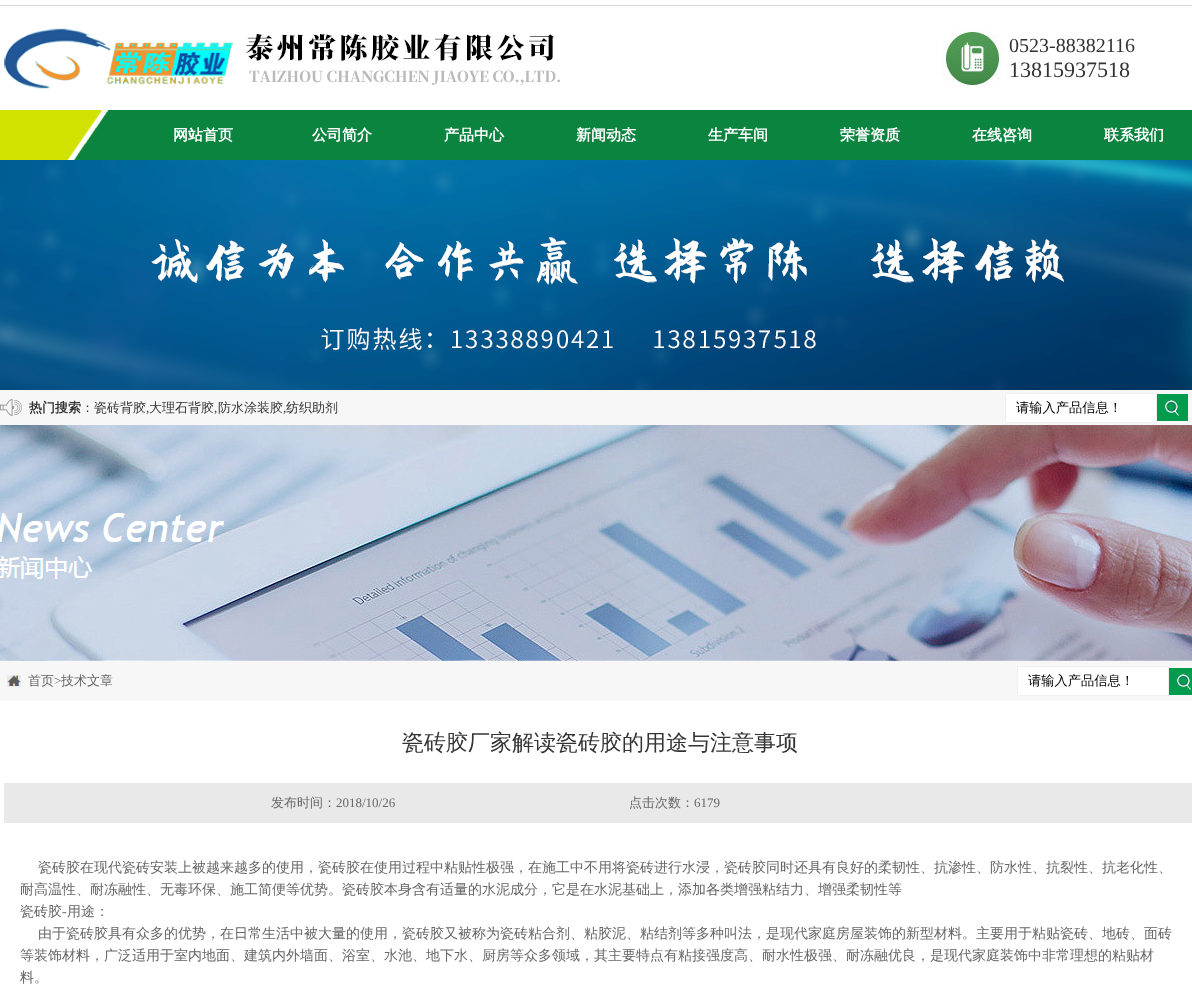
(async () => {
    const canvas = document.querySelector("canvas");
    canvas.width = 1192;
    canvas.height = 997;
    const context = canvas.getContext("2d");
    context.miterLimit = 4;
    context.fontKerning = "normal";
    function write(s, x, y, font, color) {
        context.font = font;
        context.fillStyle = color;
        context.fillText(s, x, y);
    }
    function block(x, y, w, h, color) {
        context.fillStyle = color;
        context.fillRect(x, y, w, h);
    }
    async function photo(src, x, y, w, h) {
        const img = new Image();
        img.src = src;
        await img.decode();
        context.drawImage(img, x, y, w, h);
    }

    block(0, 0, 1192, 997, "rgb(255, 255, 255)");
    block(0, 5, 1192, 1, "rgb(219, 219, 219)");
    await photo("media/1.png", 4, 28, 230, 61);
    await photo("media/2.png", 246, 33, 314, 52);
    await photo("media/3.png", 942, 30, 59, 57);
    write("0523-88382116", 1009, 52, "20px Liberation Serif", "rgb(51, 51, 51)");
    write("13815937518", 1009, 77, "22px Liberation Serif", "rgb(51, 51, 51)");
    await photo("media/4.png", 0, 110, 1192, 50);
    write("网站首页", 173, 140, "bold 15px WenQuanYi Zen Hei", "rgb(255, 255, 255)");
    write("公司简介", 312, 140, "bold 15px WenQuanYi Zen Hei", "rgb(255, 255, 255)");
    write("产品中心", 444, 140, "bold 15px WenQuanYi Zen Hei", "rgb(255, 255, 255)");
    write("新闻动态", 576, 140, "bold 15px WenQuanYi Zen Hei", "rgb(255, 255, 255)");
    write("生产车间", 708, 140, "bold 15px WenQuanYi Zen Hei", "rgb(255, 255, 255)");
    write("荣誉资质", 840, 140, "bold 15px WenQuanYi Zen Hei", "rgb(255, 255, 255)");
    write("在线咨询", 972, 140, "bold 15px WenQuanYi Zen Hei", "rgb(255, 255, 255)");
    write("联系我们", 1104, 140, "bold 15px WenQuanYi Zen Hei", "rgb(255, 255, 255)");
    await photo("media/5.png", 0, 160, 1192, 230);
    block(0, 390, 1192, 35, "rgb(247, 247, 247)");
    await photo("media/6.png", 0, 399, 22, 17);
    write("热门搜索", 29, 412, "bold 13px WenQuanYi Zen Hei", "rgb(51, 51, 51)");
    write("：瓷砖背胶", 81, 412, "500 13px WenQuanYi Zen Hei", "rgb(51, 51, 51)");
    write(",", 146, 412, "13px Liberation Serif", "rgb(51, 51, 51)");
    write("大理石背胶", 149, 412, "500 13px WenQuanYi Zen Hei", "rgb(51, 51, 51)");
    write(",", 214, 412, "13px Liberation Serif", "rgb(51, 51, 51)");
    write("防水涂装胶", 218, 412, "500 13px WenQuanYi Zen Hei", "rgb(51, 51, 51)");
    write(",", 283, 412, "13px Liberation Serif", "rgb(51, 51, 51)");
    write("纺织助剂", 286, 412, "500 13px WenQuanYi Zen Hei", "rgb(51, 51, 51)");
    context.fillStyle = "rgb(255, 255, 255)";
    context.beginPath();
    context.rect(1005.5, 393.5, 151, 29);
    context.fill();
    context.strokeStyle = "rgb(240, 240, 240)";
    context.stroke();
    write("请输入产品信息！", 1016, 412, "500 13.25px WenQuanYi Zen Hei", "rgb(0, 0, 0)");
    await photo("media/7.png", 1157, 394, 31, 27);
    await photo("media/8.png", 0, 425, 1192, 236);
    block(0, 661, 1192, 40, "rgb(247, 247, 247)");
    await photo("media/9.png", 7, 675, 14, 12);
    write("首页", 28, 685, "500 13px WenQuanYi Zen Hei", "rgb(102, 102, 102)");
    write(">", 54, 685, "13px Liberation Serif", "rgb(102, 102, 102)");
    write("技术文章", 61, 685, "500 13px WenQuanYi Zen Hei", "rgb(102, 102, 102)");
    context.fillStyle = "rgb(255, 255, 255)";
    context.beginPath();
    context.rect(1017.5, 666.5, 151, 29);
    context.fill();
    context.stroke();
    write("请输入产品信息！", 1028, 685, "500 13.25px WenQuanYi Zen Hei", "rgb(0, 0, 0)");
    await photo("media/10.png", 1169, 668, 23, 27);
    write("瓷砖胶厂家解读瓷砖胶的用途与注意事项", 402, 750, "500 22px WenQuanYi Zen Hei", "rgb(51, 51, 51)");
    block(4, 783, 1188, 40, "rgb(233, 233, 233)");
    write("发布时间：", 271, 807, "500 13px WenQuanYi Zen Hei", "rgb(102, 102, 102)");
    write("2018/10/26", 336, 807, "13px Liberation Serif", "rgb(102, 102, 102)");
    write("点击次数：", 629, 807, "500 13px WenQuanYi Zen Hei", "rgb(102, 102, 102)");
    write("6179", 694, 807, "13px Liberation Serif", "rgb(102, 102, 102)");
    write("瓷砖胶在现代瓷砖安装上被越来越多的使用，瓷砖胶在使用过程中粘贴性极强，在施工中不用将瓷砖进行水浸，瓷砖胶同时还具有良好的柔韧性、抗渗性、防水性、抗裂性、抗老化性、", 38, 872, "500 14px WenQuanYi Zen Hei", "rgb(102, 102, 102)");
    write("耐高温性、耐冻融性、无毒环保、施工简便等优势。瓷砖胶本身含有适量的水泥成分，它是在水泥基础上，添加各类增强粘结力、增强柔韧性等", 20, 894, "500 14px WenQuanYi Zen Hei", "rgb(102, 102, 102)");
    write("瓷砖胶", 20, 916, "500 14px WenQuanYi Zen Hei", "rgb(102, 102, 102)");
    write("-", 62, 916, "14px Liberation Serif", "rgb(102, 102, 102)");
    write("用途：", 67, 916, "500 14px WenQuanYi Zen Hei", "rgb(102, 102, 102)");
    write("由于瓷砖胶具有众多的优势，在日常生活中被大量的使用，瓷砖胶又被称为瓷砖粘合剂、粘胶泥、粘结剂等多种叫法，是现代家庭房屋装饰的新型材料。主要用于粘贴瓷砖、地砖、面砖", 38, 938, "500 14px WenQuanYi Zen Hei", "rgb(102, 102, 102)");
    write("等装饰材料，广泛适用于室内地面、建筑内外墙面、浴室、水池、地下水、厨房等众多领域，其主要特点有粘接强度高、耐水性极强、耐冻融优良，是现代家庭装饰中非常理想的粘贴材", 20, 960, "500 14px WenQuanYi Zen Hei", "rgb(102, 102, 102)");
    write("料。", 20, 982, "500 14px WenQuanYi Zen Hei", "rgb(102, 102, 102)");
})();
